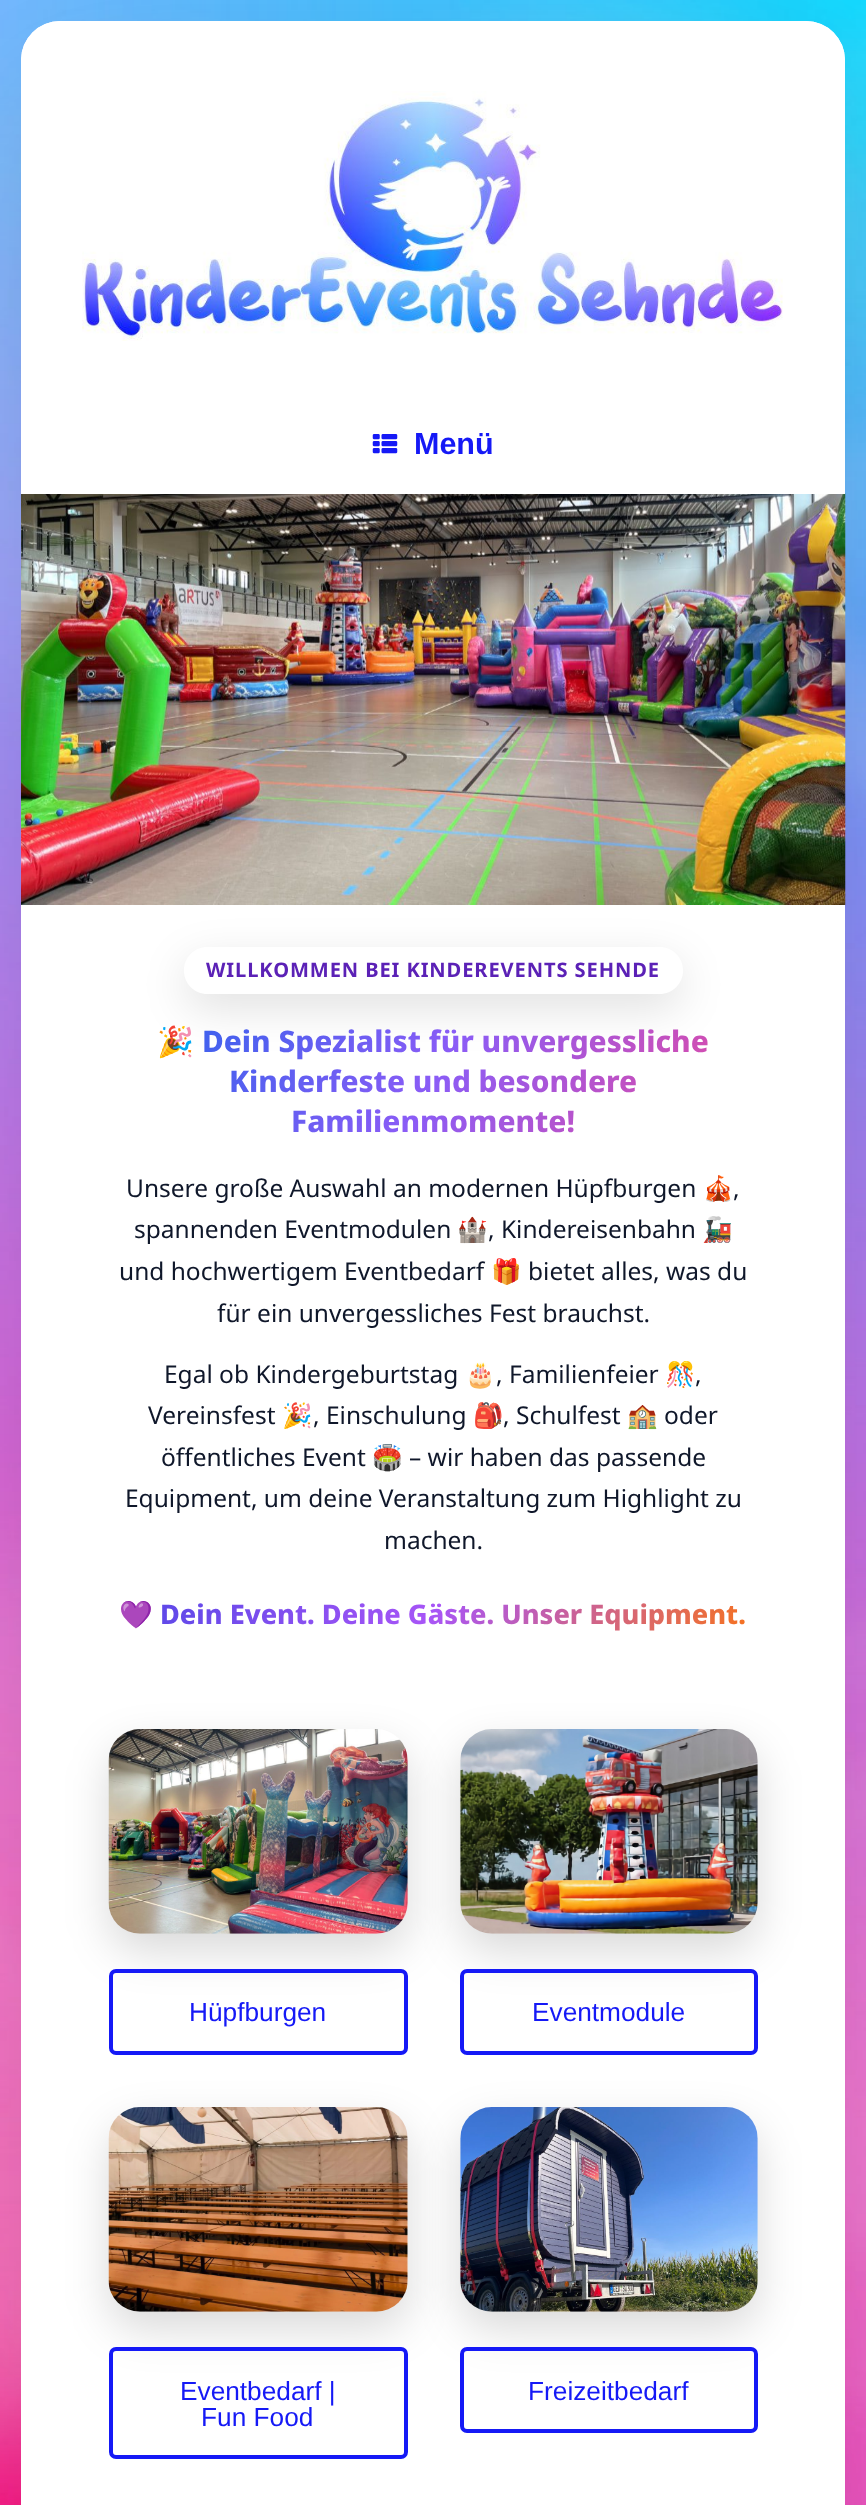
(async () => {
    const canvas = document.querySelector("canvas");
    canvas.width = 866;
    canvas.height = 2505;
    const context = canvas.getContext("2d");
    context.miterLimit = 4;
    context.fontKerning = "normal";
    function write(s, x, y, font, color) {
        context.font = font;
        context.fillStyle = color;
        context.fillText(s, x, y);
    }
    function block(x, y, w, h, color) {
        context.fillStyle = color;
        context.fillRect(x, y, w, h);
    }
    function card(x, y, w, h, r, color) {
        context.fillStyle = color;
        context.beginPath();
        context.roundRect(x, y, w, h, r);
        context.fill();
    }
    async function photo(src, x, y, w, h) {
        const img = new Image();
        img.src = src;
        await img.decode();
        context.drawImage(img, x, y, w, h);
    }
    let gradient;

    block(0, 0, 866, 2505, "rgb(255, 255, 255)");
    await photo("media/1.png", 0, 0, 866, 2505);
    context.fillStyle = "rgba(0, 0, 0, 0.14)";
    context.filter = "blur(70px)";
    context.beginPath();
    context.roundRect(21, 74, 824, 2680, 39);
    context.fill();
    context.filter = "none";
    card(21, 21, 824, 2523, 39, "rgb(255, 255, 255)");
    context.beginPath();
    context.roundRect(21, 21, 824, 473, [39, 39, 0, 0]);
    context.fill();
    await photo("media/2.png", 82, 91, 701, 250);
    await photo("media/4.png", 21, 493, 825, 412);
    block(21, 493, 824, 1, "rgb(255, 255, 255)");
    await photo("media/3.png", 372, 434, 26, 20);
    write("Menü", 414, 454, "bold 30.5px Liberation Sans", "rgb(21, 25, 246)");
    context.save();
    context.beginPath();
    context.moveTo(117, 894);
    context.lineTo(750, 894);
    context.lineTo(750, 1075);
    context.lineTo(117, 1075);
    context.closePath();
    context.moveTo(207.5, 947);
    context.lineTo(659.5, 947);
    context.bezierCurveTo(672.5, 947, 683, 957.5, 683, 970.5);
    context.bezierCurveTo(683, 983.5, 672.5, 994, 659.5, 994);
    context.lineTo(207.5, 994);
    context.bezierCurveTo(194.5, 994, 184, 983.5, 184, 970.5);
    context.bezierCurveTo(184, 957.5, 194.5, 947, 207.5, 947);
    context.closePath();
    context.clip("evenodd");
    context.fillStyle = "rgba(0, 0, 0, 0.12)";
    context.filter = "blur(22px)";
    context.beginPath();
    context.roundRect(184, 961, 499, 47, 23.5);
    context.fill();
    context.filter = "none";
    context.restore();
    context.letterSpacing = "0.9px";
    write("WILLKOMMEN BEI KINDEREVENTS SEHNDE", 206, 977, "bold 20.1px Noto Sans", "rgb(91, 33, 182)");
    context.letterSpacing = "0px";
    context.font = "bold 29.75px Noto Color Emoji";
    gradient = context.createLinearGradient(164, 927, 703, 1238);
    gradient.addColorStop(0, "rgb(37, 99, 235)");
    gradient.addColorStop(0.5, "rgb(139, 92, 246)");
    gradient.addColorStop(1, "rgb(236, 72, 153)");
    context.fillStyle = gradient;
    context.fillText("🎉", 157, 1052);
    context.font = "800 29.75px Noto Sans";
    context.fillText("Dein Spezialist für unvergessliche", 202, 1052);
    context.fillText("Kinderfeste und besondere", 229, 1092);
    context.fillText("Familienmomente!", 291, 1132);
    write("Unsere große Auswahl an modernen Hüpfburgen", 126, 1197, "24.5px Noto Sans", "rgb(15, 23, 42)");
    write("🎪", 703, 1197, "24.5px Noto Color Emoji", "rgb(15, 23, 42)");
    write(",", 733, 1197, "24.5px Noto Sans", "rgb(15, 23, 42)");
    write("spannenden Eventmodulen", 134, 1238, "24.5px Noto Sans", "rgb(15, 23, 42)");
    write("🏰", 457, 1238, "24.5px Noto Color Emoji", "rgb(15, 23, 42)");
    write(", Kindereisenbahn", 488, 1238, "24.5px Noto Sans", "rgb(15, 23, 42)");
    write("🚂", 702, 1238, "24.5px Noto Color Emoji", "rgb(15, 23, 42)");
    write("und hochwertigem Eventbedarf", 119, 1280, "24.5px Noto Sans", "rgb(15, 23, 42)");
    write("🎁", 491, 1280, "24.5px Noto Color Emoji", "rgb(15, 23, 42)");
    write("bietet alles, was du", 528, 1280, "24.5px Noto Sans", "rgb(15, 23, 42)");
    write("für ein unvergessliches Fest brauchst.", 217, 1322, "24.5px Noto Sans", "rgb(15, 23, 42)");
    write("Egal ob Kindergeburtstag", 164, 1383, "24.5px Noto Sans", "rgb(15, 23, 42)");
    write("🎂", 465, 1383, "24.5px Noto Color Emoji", "rgb(15, 23, 42)");
    write(", Familienfeier", 496, 1383, "24.5px Noto Sans", "rgb(15, 23, 42)");
    write("🎊", 665, 1383, "24.5px Noto Color Emoji", "rgb(15, 23, 42)");
    write(",", 695, 1383, "24.5px Noto Sans", "rgb(15, 23, 42)");
    write("Vereinsfest", 148, 1424, "24.5px Noto Sans", "rgb(15, 23, 42)");
    write("🎉", 282, 1424, "24.5px Noto Color Emoji", "rgb(15, 23, 42)");
    write(", Einschulung", 313, 1424, "24.5px Noto Sans", "rgb(15, 23, 42)");
    write("🎒", 473, 1424, "24.5px Noto Color Emoji", "rgb(15, 23, 42)");
    write(", Schulfest", 503, 1424, "24.5px Noto Sans", "rgb(15, 23, 42)");
    write("🏫", 627, 1424, "24.5px Noto Color Emoji", "rgb(15, 23, 42)");
    write("oder", 664, 1424, "24.5px Noto Sans", "rgb(15, 23, 42)");
    write("öffentliches Event", 161, 1466, "24.5px Noto Sans", "rgb(15, 23, 42)");
    write("🏟️", 372, 1466, "24.5px Noto Color Emoji", "rgb(15, 23, 42)");
    write("– wir haben das passende", 409, 1466, "24.5px Noto Sans", "rgb(15, 23, 42)");
    write("Equipment, um deine Veranstaltung zum Highlight zu", 125, 1507, "24.5px Noto Sans", "rgb(15, 23, 42)");
    write("machen.", 384, 1549, "24.5px Noto Sans", "rgb(15, 23, 42)");
    context.font = "bold 27.1px Noto Color Emoji";
    gradient = context.createLinearGradient(180, 1468, 686, 1760);
    gradient.addColorStop(0, "rgb(79, 70, 229)");
    gradient.addColorStop(0.5, "rgb(168, 85, 247)");
    gradient.addColorStop(1, "rgb(249, 115, 22)");
    context.fillStyle = gradient;
    context.fillText("💜", 119, 1624);
    context.font = "800 27.1px Noto Sans";
    context.fillText("Dein Event. Deine Gäste. Unser Equipment.", 160, 1624);
    context.fillStyle = "rgba(0, 0, 0, 0.15)";
    context.filter = "blur(22px)";
    context.beginPath();
    context.roundRect(109, 1747, 299, 204, 32);
    context.fill();
    context.filter = "none";
    await photo("media/5.png", 108, 1729, 300, 205);
    context.beginPath();
    context.roundRect(111, 1971, 295, 82, 5);
    context.strokeStyle = "rgb(21, 25, 246)";
    context.lineWidth = 4;
    context.stroke();
    write("Hüpfburgen", 189, 2021, "26.25px Liberation Sans", "rgb(21, 25, 246)");
    context.fillStyle = "rgba(0, 0, 0, 0.15)";
    context.filter = "blur(22px)";
    context.beginPath();
    context.roundRect(460, 1747, 298, 204, 32);
    context.fill();
    context.filter = "none";
    await photo("media/6.png", 460, 1729, 298, 205);
    context.beginPath();
    context.roundRect(462, 1971, 294, 82, 5);
    context.stroke();
    write("Eventmodule", 532, 2021, "26.25px Liberation Sans", "rgb(21, 25, 246)");
    context.fillStyle = "rgba(0, 0, 0, 0.15)";
    context.filter = "blur(22px)";
    context.beginPath();
    context.roundRect(109, 2125, 299, 204, 32);
    context.fill();
    context.filter = "none";
    await photo("media/7.png", 108, 2107, 300, 205);
    context.beginPath();
    context.roundRect(111, 2349, 295, 108, 5);
    context.stroke();
    write("Eventbedarf |", 180, 2400, "26.25px Liberation Sans", "rgb(21, 25, 246)");
    write("Fun Food", 201, 2426, "26.25px Liberation Sans", "rgb(21, 25, 246)");
    context.fillStyle = "rgba(0, 0, 0, 0.15)";
    context.filter = "blur(22px)";
    context.beginPath();
    context.roundRect(460, 2125, 298, 204, 32);
    context.fill();
    context.filter = "none";
    await photo("media/8.png", 460, 2107, 298, 205);
    context.beginPath();
    context.roundRect(462, 2349, 294, 82, 5);
    context.stroke();
    write("Freizeitbedarf", 528, 2400, "26.25px Liberation Sans", "rgb(21, 25, 246)");
})();
